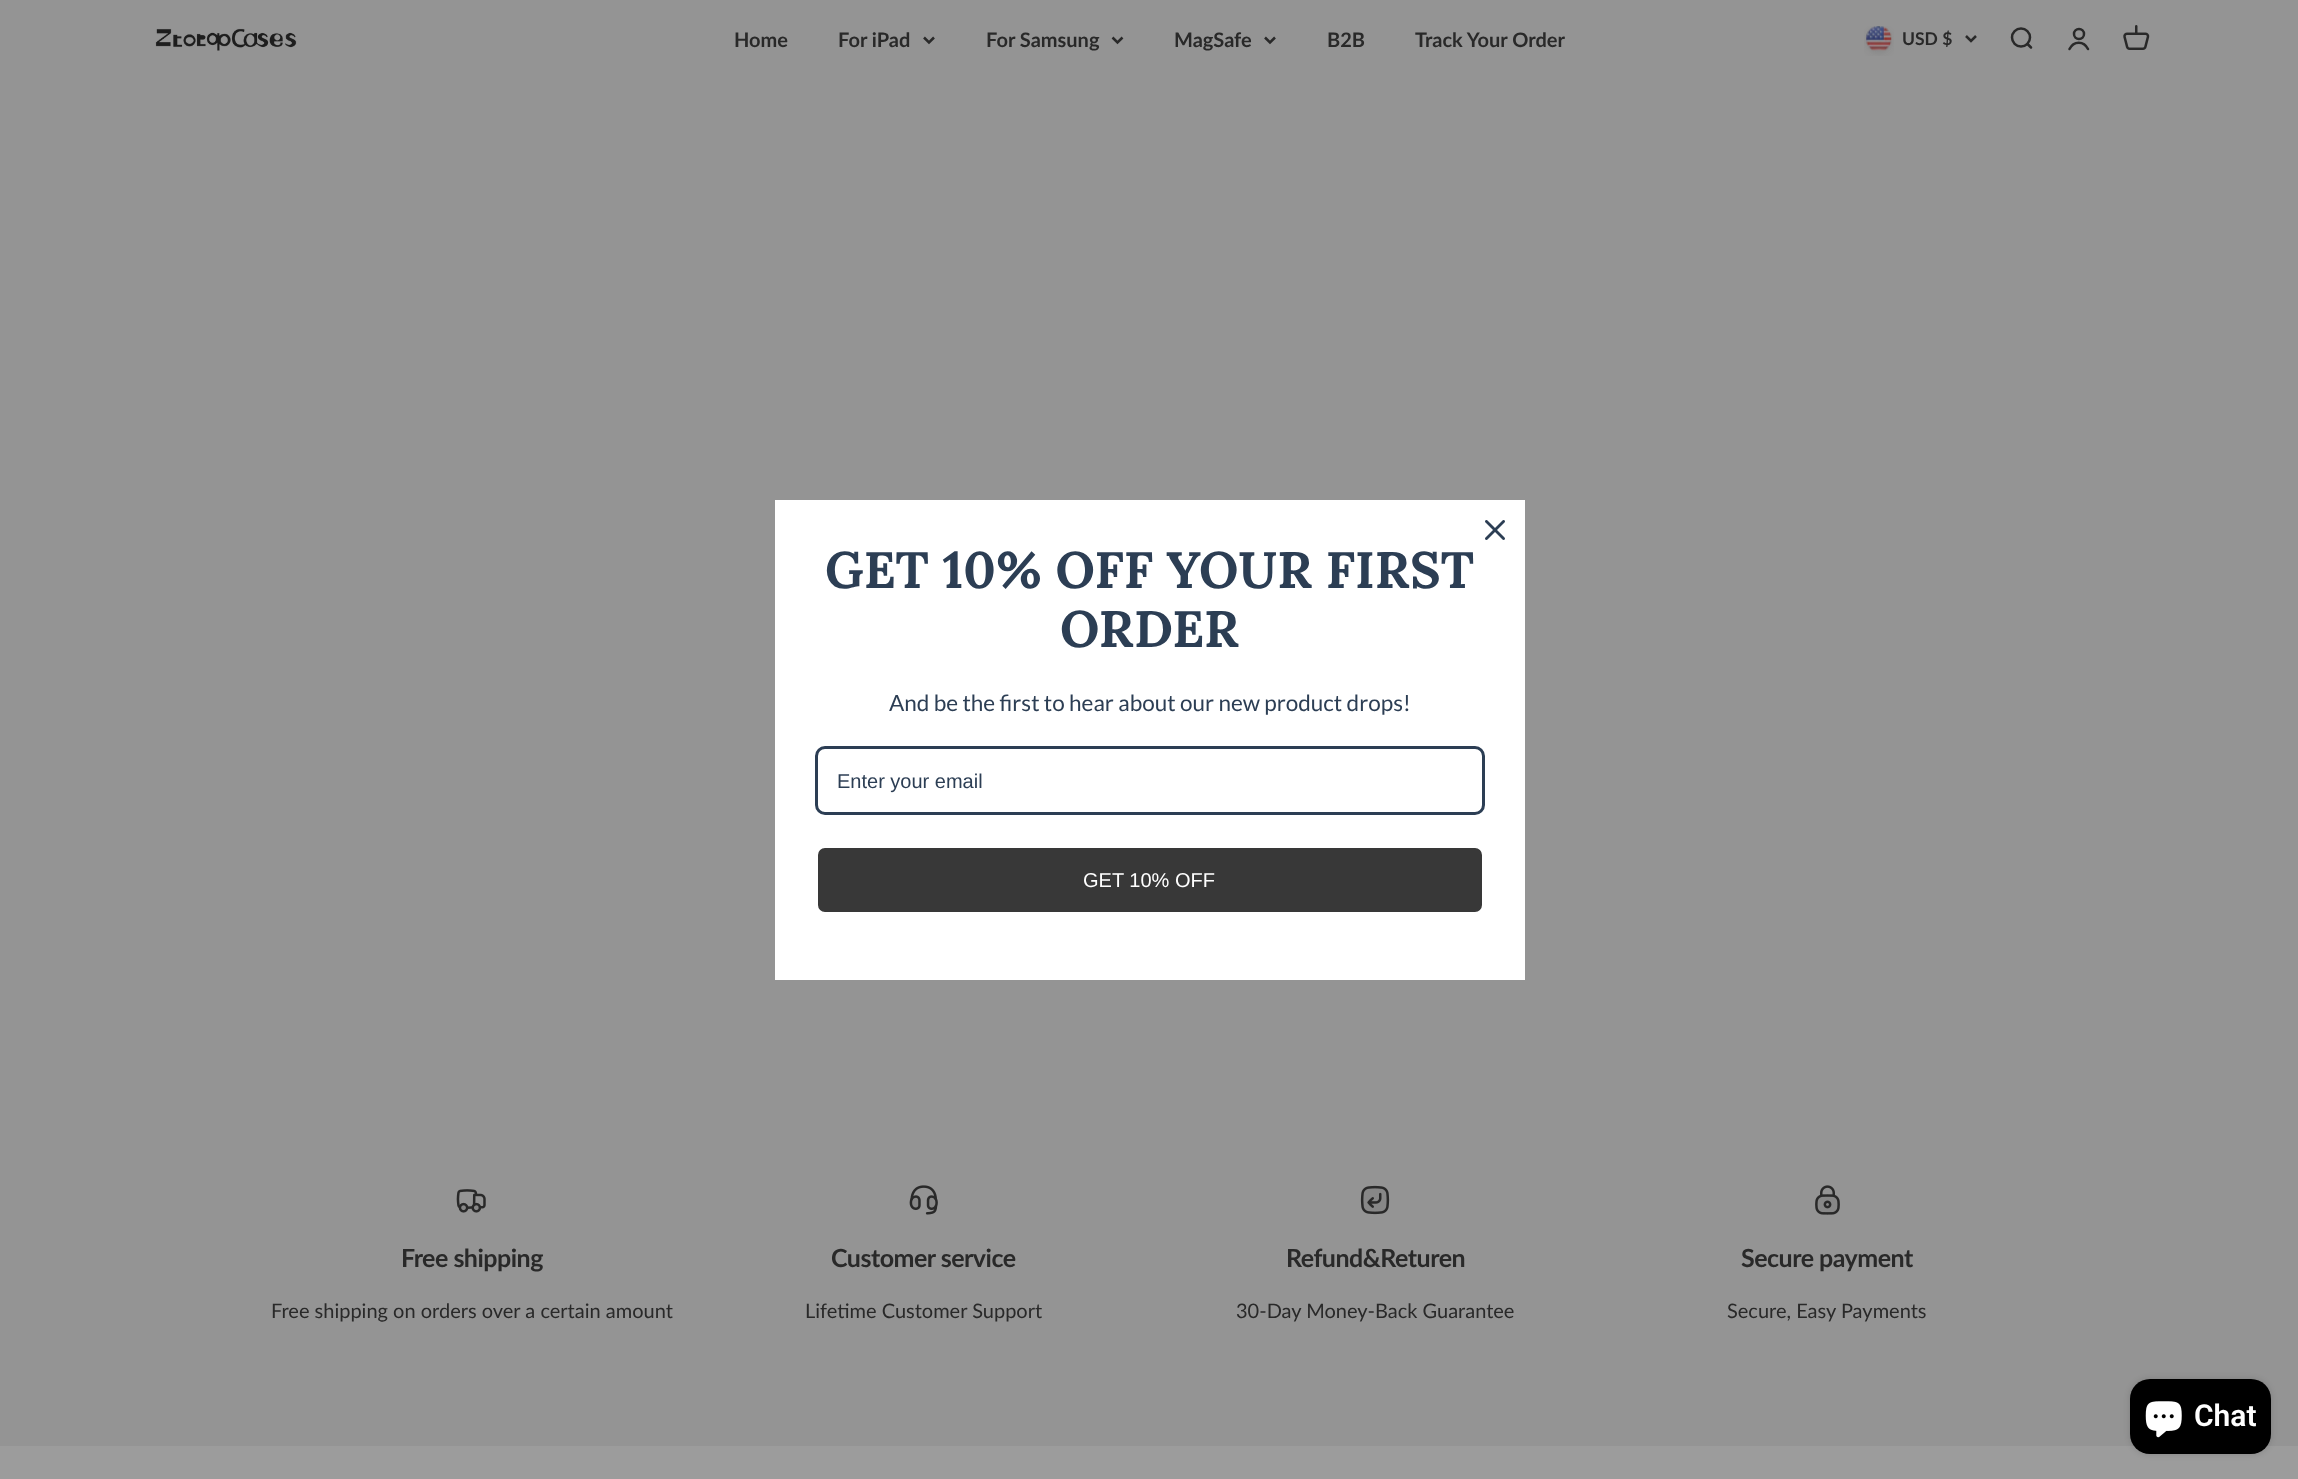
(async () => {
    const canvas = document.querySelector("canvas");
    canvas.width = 2298;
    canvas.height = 1479;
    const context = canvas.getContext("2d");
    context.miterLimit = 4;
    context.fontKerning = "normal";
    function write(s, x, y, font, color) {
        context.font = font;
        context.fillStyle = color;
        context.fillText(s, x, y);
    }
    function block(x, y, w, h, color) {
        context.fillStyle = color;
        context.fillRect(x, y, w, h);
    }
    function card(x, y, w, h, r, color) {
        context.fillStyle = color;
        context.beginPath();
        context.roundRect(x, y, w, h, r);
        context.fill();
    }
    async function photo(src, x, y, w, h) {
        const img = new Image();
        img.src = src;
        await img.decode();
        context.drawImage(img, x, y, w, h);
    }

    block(0, 0, 2298, 1479, "rgb(148, 148, 148)");
    await photo("media/1.png", 155, 28, 142, 23);
    write("Home", 734, 47, "bold 20px Lato", "rgb(41, 41, 41)");
    write("For iPad", 838, 47, "bold 20px Lato", "rgb(41, 41, 41)");
    context.beginPath();
    context.moveTo(924, 37.5);
    context.lineTo(929, 42.5);
    context.lineTo(934, 37.5);
    context.strokeStyle = "rgb(41, 41, 41)";
    context.lineWidth = 2.5;
    context.stroke();
    write("For Samsung", 986, 47, "bold 20px Lato", "rgb(41, 41, 41)");
    context.beginPath();
    context.moveTo(1112.5, 37.5);
    context.lineTo(1117.5, 42.5);
    context.lineTo(1122.5, 37.5);
    context.stroke();
    write("MagSafe", 1174, 47, "bold 20px Lato", "rgb(41, 41, 41)");
    context.beginPath();
    context.moveTo(1265, 37.5);
    context.lineTo(1270, 42.5);
    context.lineTo(1275, 37.5);
    context.stroke();
    write("B2B", 1327, 47, "bold 20px Lato", "rgb(41, 41, 41)");
    write("Track Your Order", 1415, 47, "bold 20px Lato", "rgb(41, 41, 41)");
    await photo("media/2.png", 1864, 26, 30, 30);
    write("USD $", 1902, 45, "bold 17.5px Lato", "rgb(41, 41, 41)");
    context.beginPath();
    context.moveTo(1966, 36);
    context.lineTo(1971, 41);
    context.lineTo(1976, 36);
    context.stroke();
    context.beginPath();
    context.arc(2021, 37.5, 9, 0, Math.PI * 2);
    context.stroke();
    context.beginPath();
    context.moveTo(2027.5, 44);
    context.lineTo(2031, 47.5);
    context.lineCap = "round";
    context.lineJoin = "round";
    context.stroke();
    context.beginPath();
    context.arc(2079, 34, 5, 0, Math.PI * 2);
    context.stroke();
    context.beginPath();
    context.moveTo(2069.5, 49);
    context.bezierCurveTo(2073.5, 40.5, 2084, 40.5, 2088, 49);
    context.lineJoin = "miter";
    context.stroke();
    await photo("media/3.png", 2123, 25, 27, 25);
    block(775, 500, 750, 480, "rgb(255, 255, 255)");
    await photo("media/4.png", 1485, 520, 20, 20);
    write("GET 10% OFF YOUR FIRST", 825, 588, "bold 51.25px Lora", "rgb(44, 62, 84)");
    write("ORDER", 1060, 647, "bold 51.25px Lora", "rgb(44, 62, 84)");
    write("And be the first to hear about our new product drops!", 889, 711, "22.5px 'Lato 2'", "rgb(44, 62, 84)");
    context.beginPath();
    context.roundRect(816.5, 747.5, 667, 66, 8.5);
    context.strokeStyle = "rgb(44, 62, 84)";
    context.lineWidth = 3;
    context.stroke();
    write("Enter your email", 837, 788, "20px Liberation Sans", "rgb(44, 62, 84)");
    context.fillStyle = "rgb(56, 56, 56)";
    context.beginPath();
    context.roundRect(816.5, 846.5, 667, 67, 8.5);
    context.fill();
    context.strokeStyle = "rgb(255, 255, 255)";
    context.stroke();
    write("GET 10% OFF", 1083, 887, "20px Liberation Sans", "rgb(255, 255, 255)");
    await photo("media/5.png", 456, 1189, 30, 24);
    context.letterSpacing = "-0.5px";
    write("Free shipping", 401, 1267, "bold 25px Lato", "rgb(41, 41, 41)");
    context.letterSpacing = "0px";
    write("Free shipping on orders over a certain amount", 271, 1318, "20px Lato", "rgb(41, 41, 41)");
    await photo("media/6.png", 909, 1185, 29, 30);
    context.letterSpacing = "-0.5px";
    write("Customer service", 831, 1267, "bold 25px Lato", "rgb(41, 41, 41)");
    context.letterSpacing = "0px";
    write("Lifetime Customer Support", 805, 1318, "20px Lato", "rgb(41, 41, 41)");
    await photo("media/7.png", 1360, 1185, 30, 30);
    context.letterSpacing = "-0.5px";
    write("Refund&Returen", 1286, 1267, "bold 25px Lato", "rgb(41, 41, 41)");
    context.letterSpacing = "0px";
    write("30-Day Money-Back Guarantee", 1236, 1318, "20px Lato", "rgb(41, 41, 41)");
    await photo("media/8.png", 1815, 1185, 25, 30);
    context.letterSpacing = "-0.5px";
    write("Secure payment", 1741, 1267, "bold 25px Lato", "rgb(41, 41, 41)");
    context.letterSpacing = "0px";
    write("Secure, Easy Payments", 1727, 1318, "20px Lato", "rgb(41, 41, 41)");
    block(0, 1446, 2298, 33, "rgb(156, 156, 156)");
    context.fillStyle = "rgba(0, 0, 0, 0.15)";
    context.filter = "blur(3px)";
    context.beginPath();
    context.roundRect(2130, 1379, 141, 75, 20);
    context.fill();
    context.filter = "none";
    card(2130, 1379, 141, 75, 20, "rgb(0, 0, 0)");
    await photo("media/9.png", 2145, 1401, 37, 37);
    write("Chat", 2194, 1426, "600 30px Roboto", "rgb(255, 255, 255)");
})();
